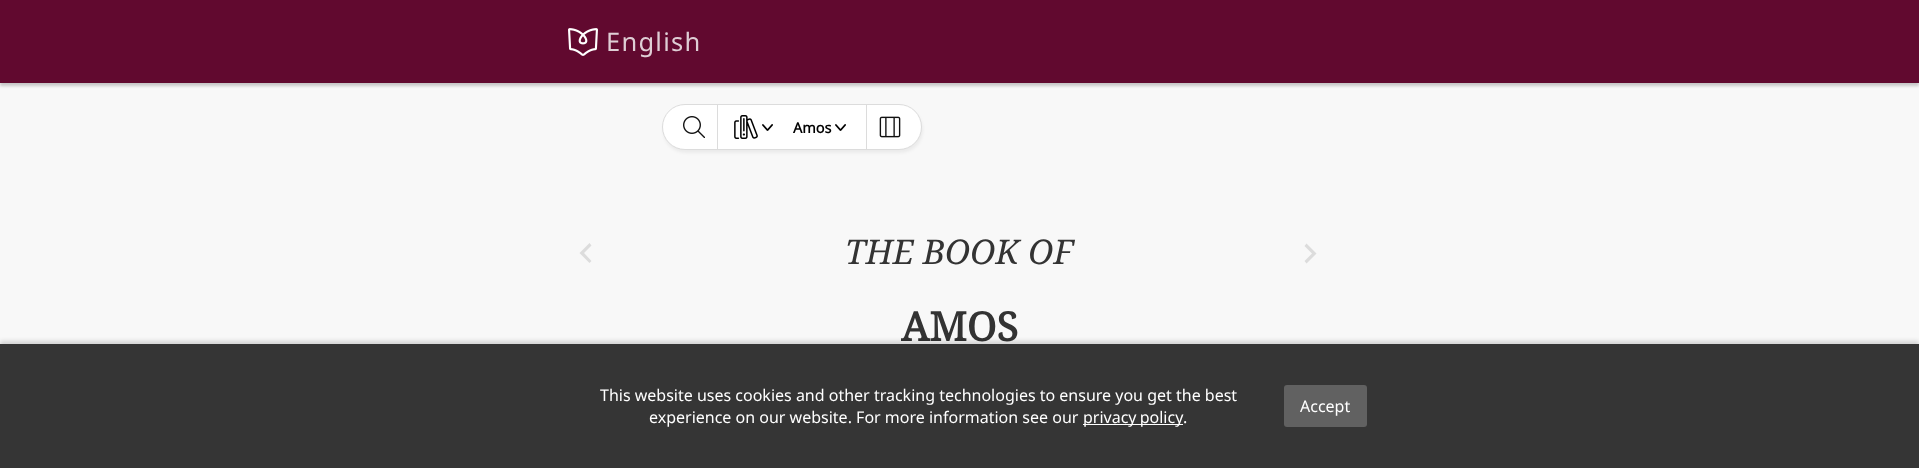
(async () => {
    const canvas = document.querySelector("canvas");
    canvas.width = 1919;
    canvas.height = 468;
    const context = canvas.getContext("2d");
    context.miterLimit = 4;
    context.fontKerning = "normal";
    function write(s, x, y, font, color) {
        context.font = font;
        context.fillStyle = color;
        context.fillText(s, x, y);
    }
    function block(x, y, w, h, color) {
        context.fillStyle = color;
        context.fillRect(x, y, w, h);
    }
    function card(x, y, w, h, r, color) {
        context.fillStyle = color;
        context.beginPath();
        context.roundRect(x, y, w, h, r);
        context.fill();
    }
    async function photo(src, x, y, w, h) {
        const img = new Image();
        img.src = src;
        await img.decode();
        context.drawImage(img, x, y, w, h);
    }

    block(0, 0, 1919, 468, "rgb(248, 248, 248)");
    context.fillStyle = "rgba(0, 0, 0, 0.2)";
    context.filter = "blur(1.5px)";
    context.beginPath();
    context.rect(0, 3, 1919, 83);
    context.fill();
    context.filter = "none";
    block(0, 0, 1919, 83, "rgb(97, 9, 47)");
    await photo("media/1.png", 568, 28, 30, 28);
    context.letterSpacing = "1.25px";
    write("English", 606, 51, "25.5px Noto Sans", "rgb(223, 206, 213)");
    context.fillStyle = "rgba(0, 0, 0, 0.05)";
    context.filter = "blur(1.5px)";
    context.beginPath();
    context.roundRect(663, 107, 260, 46, 23);
    context.fill();
    context.filter = "none";
    context.fillStyle = "rgb(255, 255, 255)";
    context.beginPath();
    context.roundRect(662.5, 104.5, 259, 45, 22.5);
    context.fill();
    context.strokeStyle = "rgb(220, 220, 220)";
    context.stroke();
    block(717, 105, 1, 44, "rgb(220, 220, 220)");
    await photo("media/2.png", 683, 116, 22, 22);
    await photo("media/3.png", 734, 115, 24, 24);
    await photo("media/4.png", 762, 124, 11, 7);
    context.letterSpacing = "0px";
    write("Amos", 793, 133, "bold 14.5px Noto Sans", "rgb(0, 0, 0)");
    await photo("media/4.png", 835, 124, 11, 7);
    block(866, 105, 1, 44, "rgb(220, 220, 220)");
    await photo("media/5.png", 879, 116, 22, 22);
    context.beginPath();
    context.moveTo(591.5, 261);
    context.lineTo(584, 253);
    context.lineTo(591.5, 245.5);
    context.lineTo(589.5, 243);
    context.lineTo(579.5, 253);
    context.lineTo(589.5, 263);
    context.closePath();
    context.fill();
    write("THE BOOK OF", 845, 264, "italic 34px Noto Serif", "rgb(51, 51, 51)");
    write("AMOS", 901, 341, "bold 40px Noto Serif", "rgb(51, 51, 51)");
    context.fillStyle = "rgb(220, 220, 220)";
    context.beginPath();
    context.moveTo(1304.5, 261);
    context.lineTo(1312, 253.5);
    context.lineTo(1304.5, 246);
    context.lineTo(1306.5, 243.5);
    context.lineTo(1316.5, 253.5);
    context.lineTo(1306.5, 263.5);
    context.closePath();
    context.fill();
    context.fillStyle = "rgba(0, 0, 0, 0.15)";
    context.filter = "blur(2px)";
    context.beginPath();
    context.rect(0, 341, 1919, 124);
    context.fill();
    context.filter = "none";
    block(0, 344, 1919, 124, "rgb(53, 53, 53)");
    write("This website uses cookies and other tracking technologies to ensure you get the best", 600, 401, "16px Noto Sans", "rgb(255, 255, 255)");
    write("experience on our website. For more information see our", 649, 423, "16px Noto Sans", "rgb(255, 255, 255)");
    block(1083, 424, 100, 1, "rgb(255, 255, 255)");
    context.wordSpacing = "-1px";
    write("privacy policy", 1083, 423, "16px Noto Sans", "rgb(255, 255, 255)");
    context.wordSpacing = "0px";
    write(".", 1183, 423, "16px Noto Sans", "rgb(255, 255, 255)");
    card(1284, 385, 83, 42, 3, "rgb(97, 97, 97)");
    write("Accept", 1300, 412, "16px Noto Sans", "rgb(255, 255, 255)");
})();
